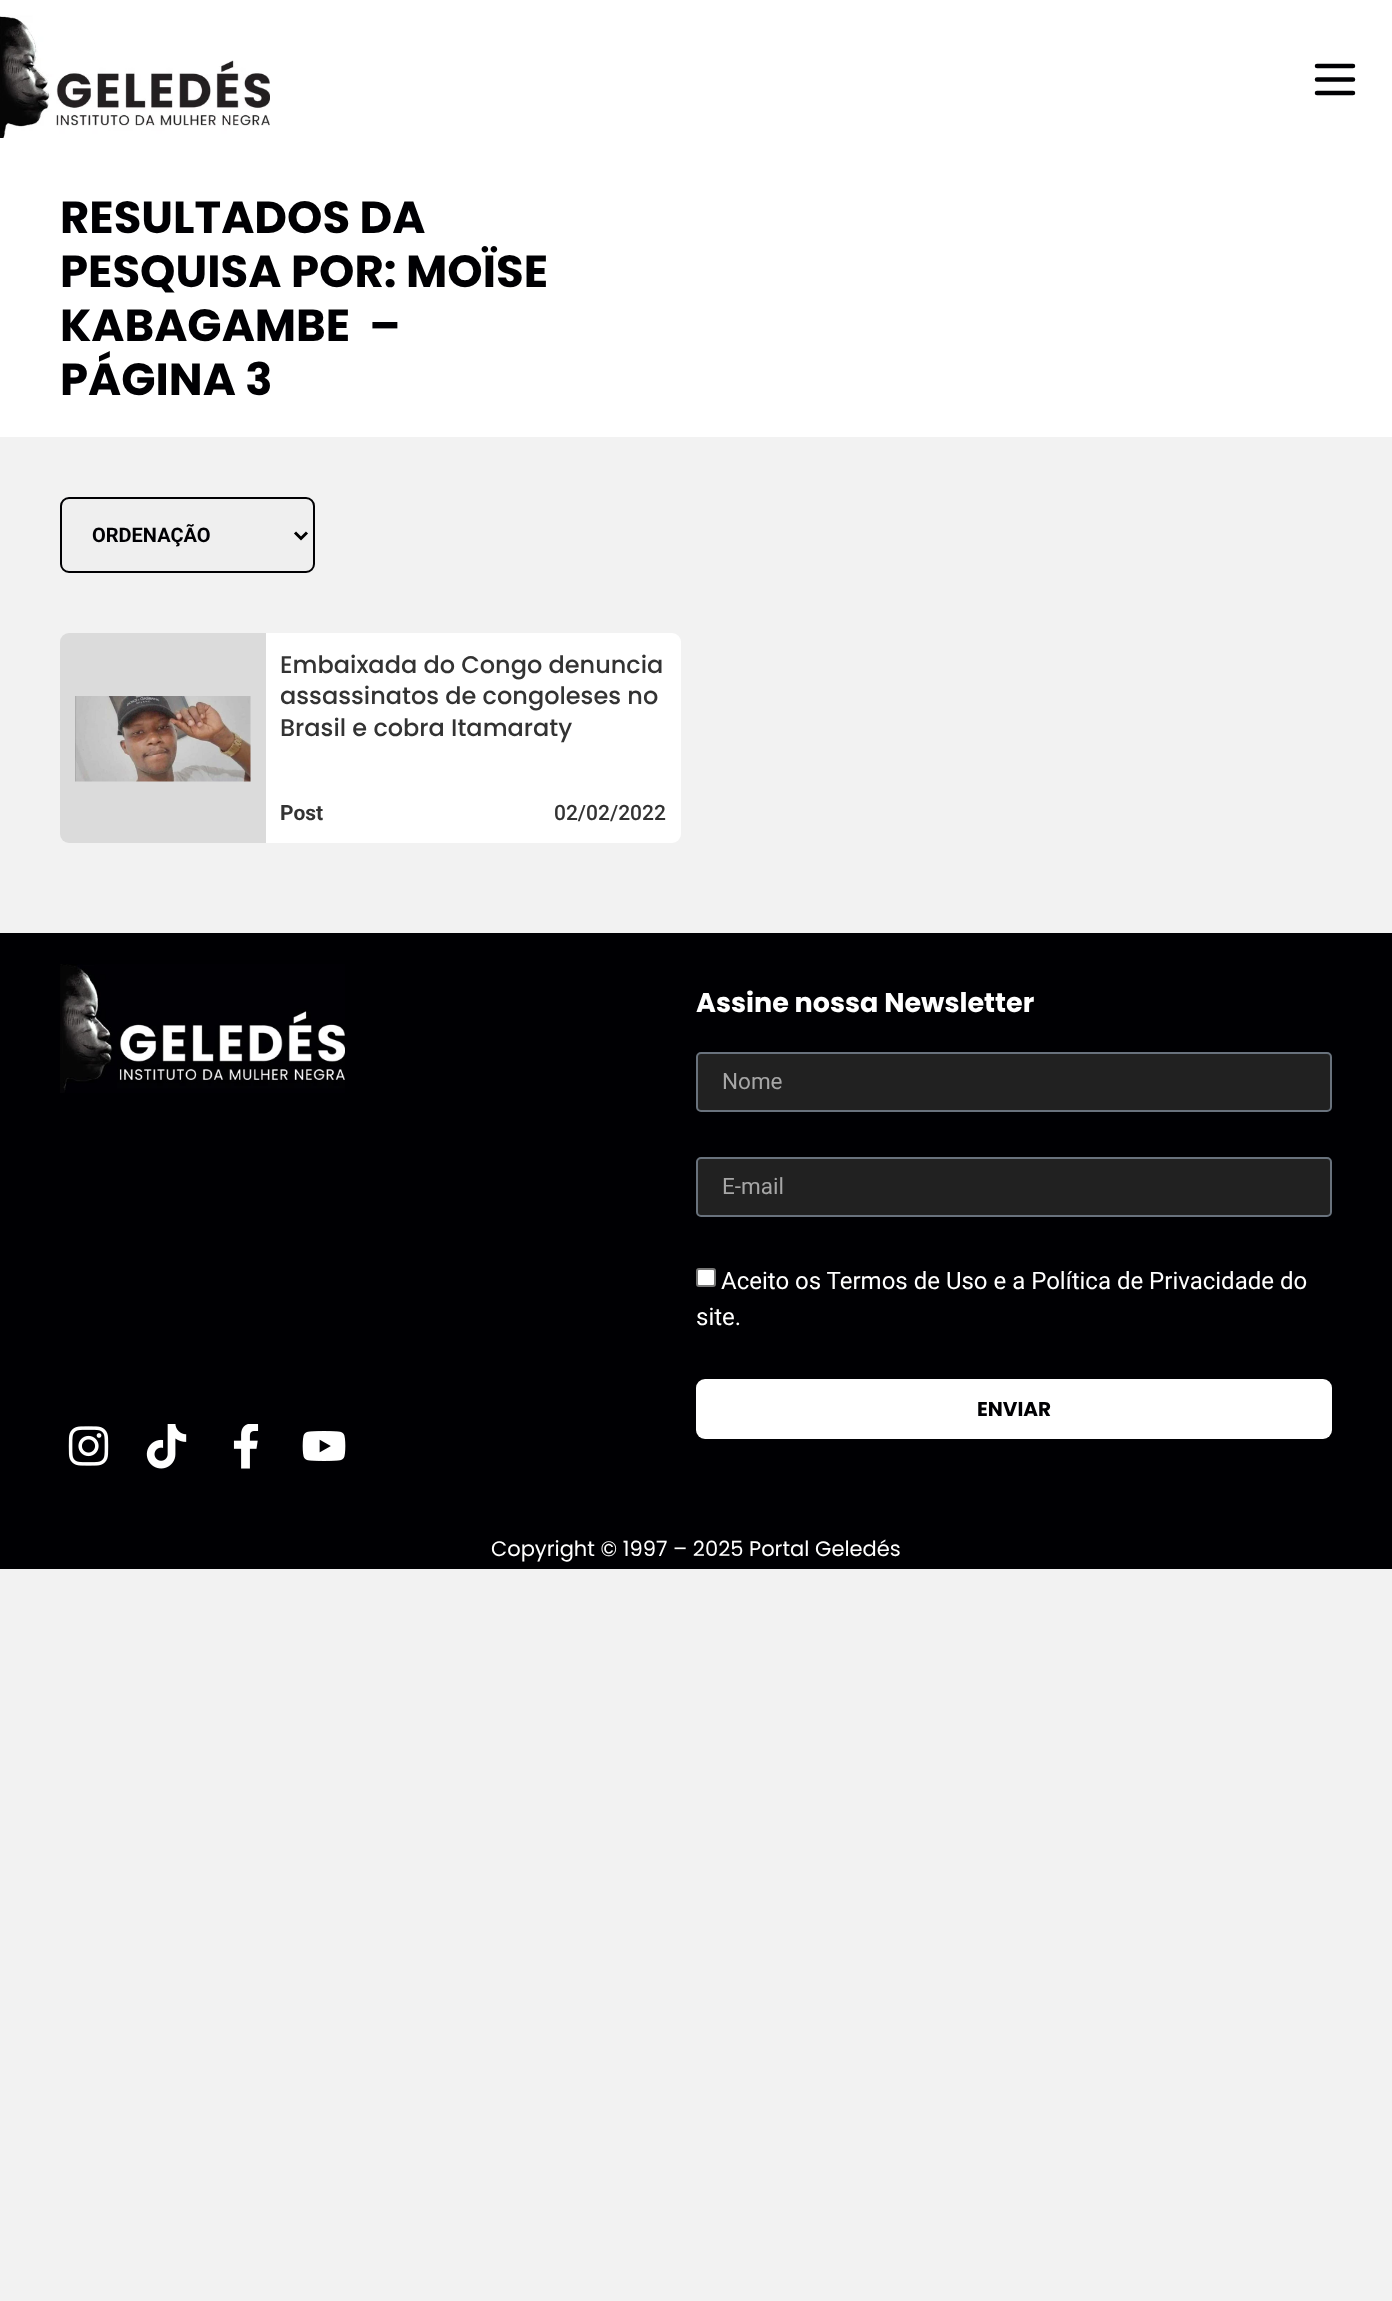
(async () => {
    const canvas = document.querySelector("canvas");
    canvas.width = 1392;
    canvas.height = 2301;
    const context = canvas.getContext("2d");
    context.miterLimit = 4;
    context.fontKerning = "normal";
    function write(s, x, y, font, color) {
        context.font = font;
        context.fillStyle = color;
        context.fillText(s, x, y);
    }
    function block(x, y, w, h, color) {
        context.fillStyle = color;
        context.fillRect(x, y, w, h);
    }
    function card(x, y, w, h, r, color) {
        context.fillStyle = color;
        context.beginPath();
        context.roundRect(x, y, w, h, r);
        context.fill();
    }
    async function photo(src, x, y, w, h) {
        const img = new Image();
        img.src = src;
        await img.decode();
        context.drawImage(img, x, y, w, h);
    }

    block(0, 0, 1392, 2301, "rgb(242, 242, 242)");
    block(0, 0, 1392, 437, "rgb(255, 255, 255)");
    await photo("media/1.png", 0, 15, 270, 123);
    context.beginPath();
    context.moveTo(1317, 79.5);
    context.lineTo(1353, 79.5);
    context.moveTo(1317, 66);
    context.lineTo(1353, 66);
    context.moveTo(1317, 93);
    context.lineTo(1353, 93);
    context.strokeStyle = "rgb(0, 0, 3)";
    context.lineWidth = 4.5;
    context.lineCap = "round";
    context.lineJoin = "round";
    context.stroke();
    write("RESULTADOS DA", 60, 233, "bold 45px Poppins", "rgb(0, 0, 3)");
    write("PESQUISA POR: MOÏSE", 60, 287, "bold 45px Poppins", "rgb(0, 0, 3)");
    write("KABAGAMBE  –", 60, 341, "bold 45px Poppins", "rgb(0, 0, 3)");
    write("PÁGINA 3", 60, 395, "bold 45px Poppins", "rgb(0, 0, 3)");
    context.fillStyle = "rgb(239, 239, 239)";
    context.beginPath();
    context.roundRect(61, 498, 253, 74, 8);
    context.fill();
    context.lineWidth = 2;
    context.lineJoin = "miter";
    context.stroke();
    context.beginPath();
    context.moveTo(295, 532.5);
    context.lineTo(301, 538.5);
    context.lineTo(307, 532.5);
    context.strokeStyle = "rgb(0, 0, 0)";
    context.lineWidth = 3;
    context.lineCap = "butt";
    context.stroke();
    write("ORDENAÇÃO", 92, 542, "bold 20px Roboto", "rgb(0, 0, 3)");
    context.fillStyle = "rgb(219, 219, 219)";
    context.beginPath();
    context.roundRect(60, 633, 206, 210, [9, 0, 0, 9]);
    context.fill();
    await photo("media/2.png", 75, 696, 176, 86);
    context.fillStyle = "rgb(255, 255, 255)";
    context.beginPath();
    context.roundRect(266, 633, 415, 210, [0, 9, 9, 0]);
    context.fill();
    write("Embaixada do Congo denuncia", 280, 673, "500 24px Poppins", "rgb(51, 51, 51)");
    context.save();
    context.beginPath();
    context.rect(281, 648, 385, 95);
    context.clip();
    write("assassinatos de congoleses no", 280, 704, "500 24px Poppins", "rgb(51, 51, 51)");
    context.restore();
    write("Brasil e cobra Itamaraty", 280, 736, "500 24px Poppins", "rgb(51, 51, 51)");
    write("Post", 280, 820, "bold 21px Roboto", "rgb(51, 51, 51)");
    write("02/02/2022", 554, 820, "500 21px Roboto", "rgb(51, 51, 51)");
    block(0, 933, 1392, 636, "rgb(0, 0, 3)");
    await photo("media/3.png", 60, 964, 285, 129);
    await photo("media/4.png", 68, 1426, 41, 40);
    await photo("media/5.png", 146, 1424, 41, 45);
    await photo("media/6.png", 233, 1424, 26, 45);
    await photo("media/7.png", 302, 1431, 44, 30);
    write("Assine nossa Newsletter", 696, 1012, "bold 27px Poppins", "rgb(255, 255, 255)");
    context.fillStyle = "rgb(33, 33, 33)";
    context.beginPath();
    context.roundRect(697, 1053, 634, 58, 4);
    context.fill();
    context.strokeStyle = "rgb(105, 114, 125)";
    context.lineWidth = 2;
    context.stroke();
    write("Nome", 722, 1089, "22.5px Roboto", "rgb(166, 166, 166)");
    context.fillStyle = "rgb(33, 33, 33)";
    context.beginPath();
    context.roundRect(697, 1158, 634, 58, 4);
    context.fill();
    context.stroke();
    write("E-mail", 722, 1194, "22.5px Roboto", "rgb(166, 166, 166)");
    context.fillStyle = "rgb(255, 255, 255)";
    context.beginPath();
    context.roundRect(697, 1269, 18, 17, 2);
    context.fill();
    context.strokeStyle = "rgb(118, 118, 118)";
    context.stroke();
    write("Aceito os Termos de Uso e a Política de Privacidade do", 721, 1289, "24px Roboto", "rgb(255, 255, 255)");
    write("site.", 696, 1325, "24px Roboto", "rgb(255, 255, 255)");
    card(696, 1379, 636, 60, 9, "rgb(255, 255, 255)");
    write("ENVIAR", 977, 1416, "bold 20px Poppins", "rgb(0, 0, 3)");
    write("Copyright © 1997 – 2025 Portal Geledés", 491, 1556, "21px Poppins", "rgb(255, 255, 255)");
})();
